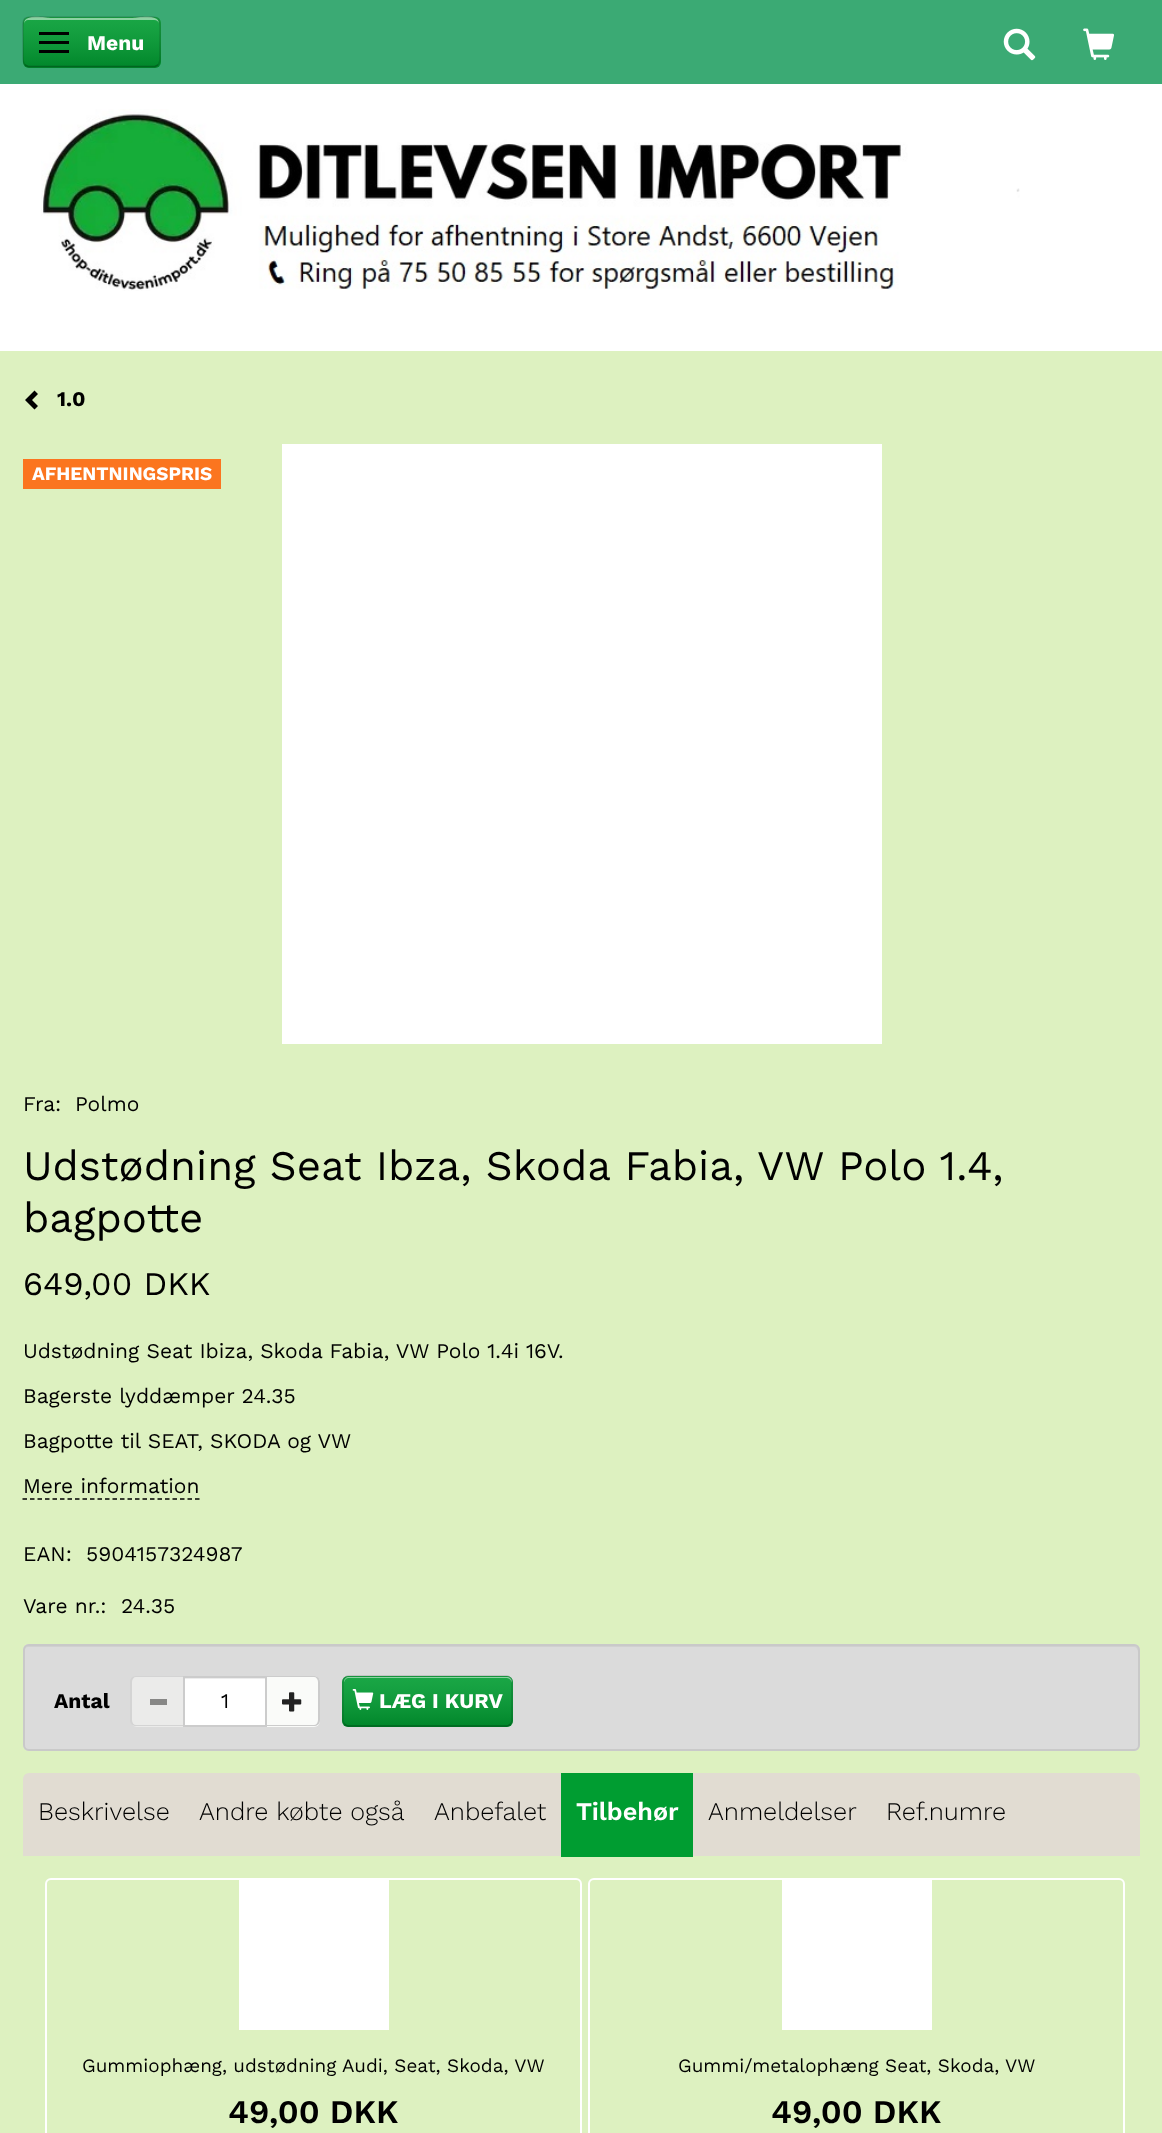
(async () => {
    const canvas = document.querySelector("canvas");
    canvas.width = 1162;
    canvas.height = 2133;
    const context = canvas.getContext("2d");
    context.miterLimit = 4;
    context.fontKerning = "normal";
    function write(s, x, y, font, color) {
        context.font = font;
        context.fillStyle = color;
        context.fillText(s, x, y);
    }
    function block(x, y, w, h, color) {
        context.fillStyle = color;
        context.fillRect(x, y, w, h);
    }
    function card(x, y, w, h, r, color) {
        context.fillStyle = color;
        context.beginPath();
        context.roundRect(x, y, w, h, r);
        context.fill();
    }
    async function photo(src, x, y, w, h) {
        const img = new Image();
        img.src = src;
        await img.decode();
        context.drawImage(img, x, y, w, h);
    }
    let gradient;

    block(0, 0, 1162, 2133, "rgb(221, 241, 192)");
    block(0, 0, 1162, 84, "rgb(59, 170, 116)");
    card(23, 17, 138, 51, 6, "rgb(0, 157, 49)");
    gradient = context.createLinearGradient(92, 16, 92, 68);
    gradient.addColorStop(0, "rgba(255, 255, 255, 0.1)");
    gradient.addColorStop(1, "rgba(0, 0, 0, 0.15)");
    context.fillStyle = gradient;
    context.beginPath();
    context.roundRect(23, 17, 138, 51, 6);
    context.fill();
    context.fillStyle = "rgb(140, 210, 162)";
    context.beginPath();
    context.moveTo(28, 20);
    context.lineTo(154, 20);
    context.bezierCurveTo(157, 20, 159, 22, 159, 24);
    context.bezierCurveTo(159, 13, 137, 18, 133, 18);
    context.lineTo(50, 18);
    context.bezierCurveTo(46, 18, 24, 13, 24, 24);
    context.bezierCurveTo(24, 22, 26, 20, 28, 20);
    context.closePath();
    context.fill();
    context.beginPath();
    context.moveTo(158, 65);
    context.lineTo(155, 66.5);
    context.lineTo(28, 66.5);
    context.lineTo(25, 65);
    context.strokeStyle = "rgb(1, 101, 32)";
    context.lineWidth = 1.5;
    context.stroke();
    context.beginPath();
    context.moveTo(25, 65);
    context.bezierCurveTo(22.5, 62.5, 23, 58, 23, 55);
    context.lineTo(23, 42);
    context.bezierCurveTo(23, 12.5, 19, 17, 49.5, 17);
    context.lineTo(133.5, 17);
    context.bezierCurveTo(164, 17, 160, 12.5, 160, 42);
    context.lineTo(160, 55);
    context.bezierCurveTo(160, 58, 160.5, 62.5, 158, 65);
    context.strokeStyle = "rgba(0, 0, 0, 0.15)";
    context.stroke();
    block(39, 32, 30, 3, "rgb(0, 0, 0)");
    block(39, 41, 30, 3, "rgb(0, 0, 0)");
    block(39, 50, 30, 3, "rgb(0, 0, 0)");
    write("Menu", 87, 50, "bold 21px Work Sans", "rgb(255, 255, 255)");
    await photo("media/1.png", 1003, 28, 33, 33);
    await photo("media/2.png", 1083, 28, 31, 32);
    block(0, 84, 1162, 267, "rgb(255, 255, 255)");
    await photo("media/3.png", 41, 109, 979, 182);
    context.fillStyle = "rgb(0, 0, 0)";
    context.beginPath();
    context.moveTo(38, 394);
    context.lineTo(32, 400);
    context.lineTo(38, 406);
    context.lineTo(34.5, 409.5);
    context.lineTo(25, 400);
    context.lineTo(34.5, 390.5);
    context.closePath();
    context.fill();
    write("1.0", 57, 406, "bold 21px Work Sans", "rgb(0, 0, 0)");
    block(23, 459, 198, 30, "rgb(251, 117, 31)");
    write("AFHENTNINGSPRIS", 32, 480, "bold 18.9px Work Sans", "rgb(255, 255, 255)");
    block(282, 444, 600, 600, "rgb(255, 255, 255)");
    write("Fra:", 23, 1111, "21px Work Sans", "rgb(0, 0, 0)");
    write("Polmo", 75, 1111, "21px Work Sans", "rgb(0, 0, 0)");
    write("Udstødning Seat Ibza, Skoda Fabia, VW Polo 1.4,", 23, 1180, "42px Work Sans", "rgb(0, 0, 0)");
    write("bagpotte", 23, 1232, "42px Work Sans", "rgb(0, 0, 0)");
    write("649,00 DKK", 23, 1295, "33px Work Sans", "rgb(0, 0, 0)");
    write("Udstødning Seat Ibiza, Skoda Fabia, VW Polo 1.4i 16V.", 23, 1358, "21px Work Sans", "rgb(0, 0, 0)");
    write("Bagerste lyddæmper 24.35", 23, 1403, "21px Work Sans", "rgb(0, 0, 0)");
    write("Bagpotte til SEAT, SKODA og VW", 23, 1448, "21px Work Sans", "rgb(0, 0, 0)");
    write("Mere information", 23, 1493, "21px Work Sans", "rgb(0, 0, 0)");
    context.beginPath();
    context.moveTo(22.5, 1499);
    context.lineTo(199.5, 1499);
    context.strokeStyle = "rgb(0, 0, 0)";
    context.setLineDash([4.5, 3]);
    context.stroke();
    write("EAN:", 23, 1561, "21px Work Sans", "rgb(0, 0, 0)");
    write("5904157324987", 86, 1561, "21px Work Sans", "rgb(0, 0, 0)");
    write("Vare nr.:", 23, 1613, "21px Work Sans", "rgb(0, 0, 0)");
    write("24.35", 121, 1613, "21px Work Sans", "rgb(0, 0, 0)");
    card(23, 1644, 1117, 107, 6, "rgb(219, 219, 219)");
    context.fillStyle = "rgb(208, 208, 208)";
    context.beginPath();
    context.moveTo(28, 1647);
    context.lineTo(1134, 1647);
    context.bezierCurveTo(1136, 1647, 1138, 1649, 1138, 1652);
    context.lineTo(1138, 1747);
    context.bezierCurveTo(1139, 1746, 1139, 1745, 1139, 1744);
    context.lineTo(1139, 1651);
    context.bezierCurveTo(1139, 1648, 1137, 1646, 1134, 1646);
    context.lineTo(29, 1646);
    context.bezierCurveTo(26, 1646, 24, 1648, 24, 1651);
    context.lineTo(24, 1652);
    context.bezierCurveTo(24, 1649, 26, 1647, 28, 1647);
    context.closePath();
    context.fill();
    context.beginPath();
    context.roundRect(24, 1645, 1115, 105, 5);
    context.strokeStyle = "rgb(201, 201, 201)";
    context.lineWidth = 2;
    context.setLineDash([]);
    context.stroke();
    write("Antal", 54, 1708, "bold 21px Work Sans", "rgb(0, 0, 0)");
    context.fillStyle = "rgb(235, 235, 234)";
    context.beginPath();
    context.roundRect(131, 1676, 52, 51, [6, 0, 0, 6]);
    context.fill();
    context.fillStyle = "rgb(212, 212, 212)";
    context.beginPath();
    context.moveTo(136, 1676);
    context.lineTo(183, 1676);
    context.lineTo(183, 1726);
    context.lineTo(136, 1726);
    context.bezierCurveTo(133, 1726, 130, 1724, 130, 1720);
    context.lineTo(130, 1682);
    context.bezierCurveTo(130, 1678, 133, 1676, 136, 1676);
    context.closePath();
    context.moveTo(136, 1677);
    context.lineTo(183, 1677);
    context.lineTo(183, 1725);
    context.lineTo(136, 1725);
    context.bezierCurveTo(134, 1725, 132, 1723, 132, 1720);
    context.lineTo(132, 1682);
    context.bezierCurveTo(132, 1679, 134, 1677, 136, 1677);
    context.closePath();
    context.fill("evenodd");
    block(150, 1699, 17, 6, "rgb(135, 135, 134)");
    block(185, 1679, 80, 46, "rgb(255, 255, 255)");
    block(185, 1678, 81, 1, "rgb(236, 236, 236)");
    context.strokeStyle = "rgb(204, 204, 204)";
    context.strokeRect(184, 1677, 82, 49);
    write("1", 221, 1708, "21px Work Sans", "rgb(0, 0, 0)");
    context.fillStyle = "rgb(250, 251, 249)";
    context.beginPath();
    context.roundRect(267, 1676, 53, 51, [0, 6, 6, 0]);
    context.fill();
    context.fillStyle = "rgb(204, 204, 204)";
    context.beginPath();
    context.moveTo(267, 1676);
    context.lineTo(314, 1676);
    context.bezierCurveTo(317, 1676, 320, 1678, 320, 1682);
    context.lineTo(320, 1720);
    context.bezierCurveTo(320, 1724, 317, 1726, 314, 1726);
    context.lineTo(267, 1726);
    context.closePath();
    context.moveTo(267, 1677);
    context.lineTo(314, 1677);
    context.bezierCurveTo(316, 1677, 318, 1679, 318, 1682);
    context.lineTo(318, 1720);
    context.bezierCurveTo(318, 1723, 316, 1725, 314, 1725);
    context.lineTo(267, 1725);
    context.closePath();
    context.fill("evenodd");
    await photo("media/4.png", 282, 1692, 20, 20);
    card(342, 1676, 171, 51, 6, "rgb(0, 157, 49)");
    gradient = context.createLinearGradient(428, 1676, 428, 1727);
    gradient.addColorStop(0, "rgba(255, 255, 255, 0.1)");
    gradient.addColorStop(1, "rgba(0, 0, 0, 0.15)");
    context.fillStyle = gradient;
    context.beginPath();
    context.roundRect(342, 1676, 171, 51, 6);
    context.fill();
    context.fillStyle = "rgb(140, 210, 162)";
    context.beginPath();
    context.moveTo(348, 1678);
    context.lineTo(507, 1678);
    context.bezierCurveTo(509, 1678, 512, 1681, 512, 1683);
    context.lineTo(512, 1682);
    context.bezierCurveTo(512, 1679, 510, 1677, 507, 1677);
    context.lineTo(349, 1677);
    context.bezierCurveTo(346, 1677, 344, 1679, 344, 1682);
    context.lineTo(344, 1683);
    context.bezierCurveTo(344, 1681, 346, 1678, 348, 1678);
    context.closePath();
    context.fill();
    context.beginPath();
    context.moveTo(510.5, 1724);
    context.bezierCurveTo(509.5, 1725, 508.5, 1726, 507, 1726);
    context.lineTo(348, 1726);
    context.bezierCurveTo(346.5, 1726, 345.5, 1725, 344.5, 1724);
    context.strokeStyle = "rgba(0, 0, 0, 0.25)";
    context.lineWidth = 1.5;
    context.stroke();
    context.beginPath();
    context.moveTo(344.5, 1724);
    context.bezierCurveTo(343.5, 1723, 343, 1722, 343, 1720.5);
    context.lineTo(343, 1681.5);
    context.bezierCurveTo(343, 1680, 343.5, 1679, 344.5, 1678);
    context.bezierCurveTo(345.5, 1677, 346.5, 1676, 348, 1676);
    context.lineTo(507, 1676);
    context.bezierCurveTo(508.5, 1676, 509.5, 1677, 510.5, 1678);
    context.bezierCurveTo(511.5, 1679, 512, 1680, 512, 1681.5);
    context.lineTo(512, 1720.5);
    context.bezierCurveTo(512, 1722, 511.5, 1723, 510.5, 1724);
    context.strokeStyle = "rgba(0, 0, 0, 0.15)";
    context.stroke();
    await photo("media/5.png", 352, 1689, 22, 21);
    write("LÆG I KURV", 379, 1708, "bold 21px Work Sans", "rgb(255, 255, 255)");
    context.fillStyle = "rgb(225, 220, 210)";
    context.beginPath();
    context.roundRect(23, 1773, 1117, 83, [6, 6, 0, 0]);
    context.fill();
    write("Beskrivelse", 38, 1820, "300 25.25px Work Sans", "rgb(0, 0, 0)");
    write("Andre købte også", 199, 1820, "300 25.25px Work Sans", "rgb(0, 0, 0)");
    write("Anbefalet", 434, 1820, "300 25.25px Work Sans", "rgb(0, 0, 0)");
    block(561, 1773, 132, 84, "rgb(0, 157, 49)");
    write("Tilbehør", 576, 1820, "600 25.25px Work Sans", "rgb(255, 255, 255)");
    write("Anmeldelser", 708, 1820, "300 25.25px Work Sans", "rgb(0, 0, 0)");
    write("Ref.numre", 886, 1820, "300 25.25px Work Sans", "rgb(0, 0, 0)");
    context.beginPath();
    context.roundRect(46, 1879, 535, 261, 5);
    context.strokeStyle = "rgb(255, 255, 255)";
    context.lineWidth = 2;
    context.stroke();
    block(239, 1880, 150, 150, "rgb(255, 255, 255)");
    write("Gummiophæng, udstødning Audi, Seat, Skoda, VW", 82, 2072, "18.9px Work Sans", "rgb(0, 0, 0)");
    write("49,00 DKK", 228, 2123, "600 33px Work Sans", "rgb(0, 0, 0)");
    context.beginPath();
    context.roundRect(589, 1879, 535, 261, 5);
    context.stroke();
    block(782, 1880, 150, 150, "rgb(255, 255, 255)");
    write("Gummi/metalophæng Seat, Skoda, VW", 678, 2072, "18.9px Work Sans", "rgb(0, 0, 0)");
    write("49,00 DKK", 771, 2123, "600 33px Work Sans", "rgb(0, 0, 0)");
})();
